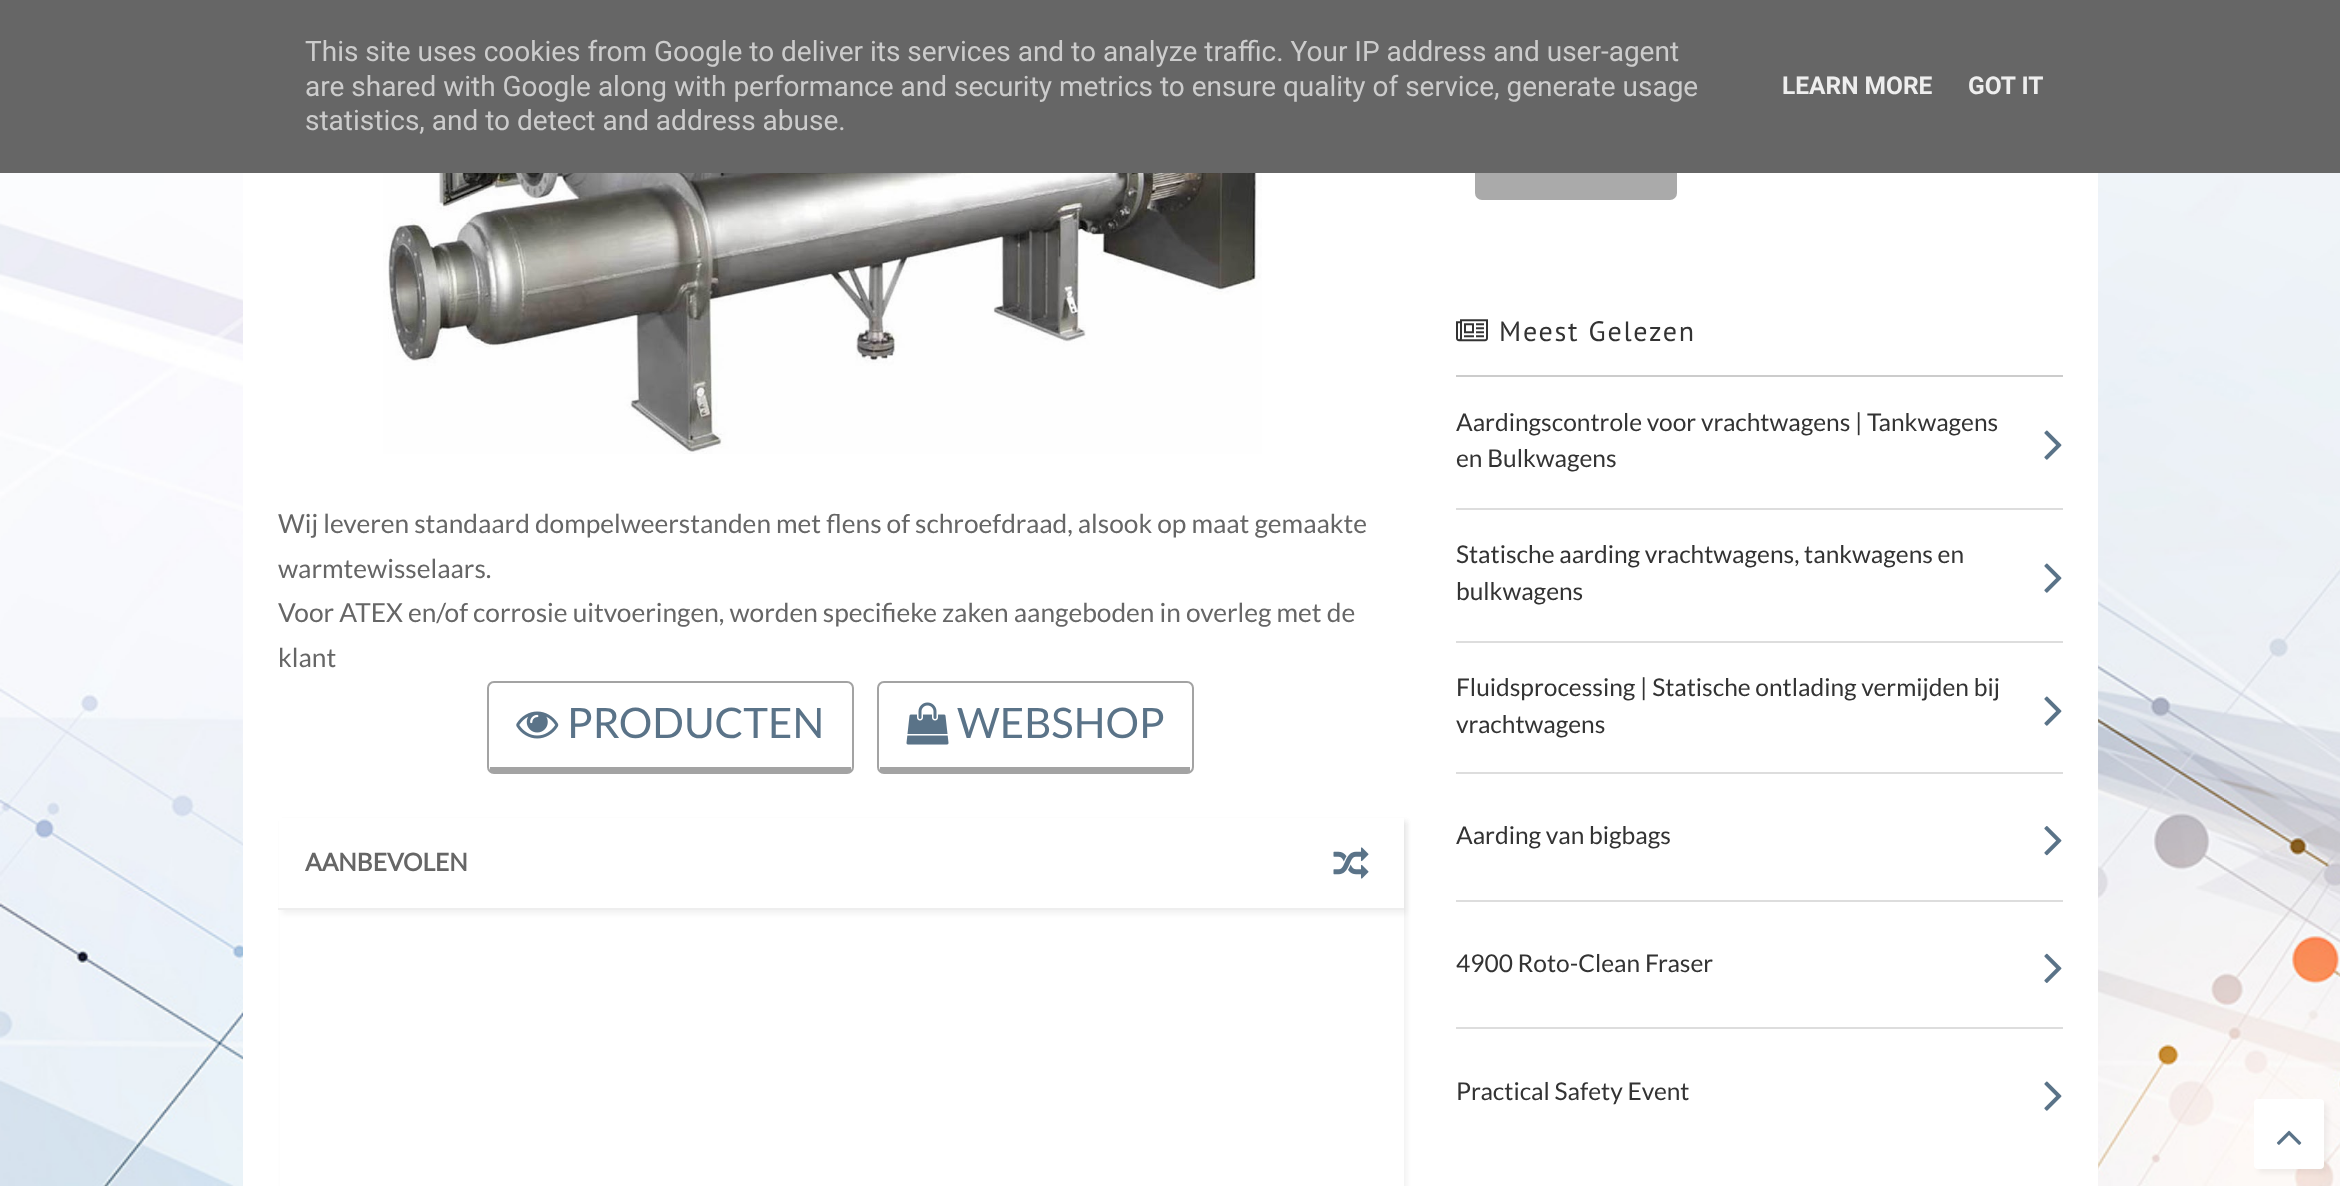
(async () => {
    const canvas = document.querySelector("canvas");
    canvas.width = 2340;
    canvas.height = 1186;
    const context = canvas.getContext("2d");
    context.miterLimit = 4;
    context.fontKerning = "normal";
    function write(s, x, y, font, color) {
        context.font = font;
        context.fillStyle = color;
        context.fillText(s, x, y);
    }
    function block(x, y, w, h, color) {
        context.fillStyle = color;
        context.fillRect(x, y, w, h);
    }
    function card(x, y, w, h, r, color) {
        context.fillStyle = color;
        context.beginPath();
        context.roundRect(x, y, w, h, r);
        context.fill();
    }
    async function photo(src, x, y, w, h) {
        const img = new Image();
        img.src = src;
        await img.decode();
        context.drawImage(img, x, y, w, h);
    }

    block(0, 0, 2340, 1186, "rgb(255, 255, 255)");
    await photo("media/1.png", 0, 173, 2340, 1013);
    block(243, 173, 1855, 1013, "rgb(255, 255, 255)");
    card(1475, 144, 202, 56, 7, "rgb(170, 170, 170)");
    block(0, 0, 2340, 173, "rgb(102, 102, 102)");
    write("This site uses cookies from Google to deliver its services and to analyze traffic. Your IP address and user-agent", 305, 61, "28px Roboto", "rgb(204, 204, 204)");
    write("are shared with Google along with performance and security metrics to ensure quality of service, generate usage", 305, 96, "28px Roboto", "rgb(204, 204, 204)");
    write("statistics, and to detect and address abuse.", 305, 130, "28px Roboto", "rgb(204, 204, 204)");
    write("LEARN MORE", 1782, 94, "bold 24.5px Roboto", "rgb(238, 238, 238)");
    write("GOT IT", 1968, 94, "bold 24.5px Roboto", "rgb(238, 238, 238)");
    await photo("media/2.png", 383, 173, 879, 281);
    write("Wij leveren standaard dompelweerstanden met flens of schroefdraad, alsook op maat gemaakte", 278, 533, "26.25px Lato", "rgb(102, 102, 102)");
    write("warmtewisselaars.", 278, 578, "26.25px Lato", "rgb(102, 102, 102)");
    write("Voor ATEX en/of corrosie uitvoeringen, worden specifieke zaken aangeboden in overleg met de", 278, 622, "26.25px Lato", "rgb(102, 102, 102)");
    write("klant", 278, 667, "26.25px Lato", "rgb(102, 102, 102)");
    await photo("media/3.png", 516, 711, 43, 28);
    context.beginPath();
    context.roundRect(488, 682, 365, 91, 6);
    context.strokeStyle = "rgb(204, 204, 204)";
    context.lineWidth = 2;
    context.stroke();
    context.beginPath();
    context.roundRect(488, 682, 365, 91, 6);
    context.strokeStyle = "rgba(0, 0, 0, 0.2)";
    context.stroke();
    block(490, 767, 361, 5, "rgb(163, 163, 163)");
    write("PRODUCTEN", 567, 738, "42px Lato", "rgb(90, 115, 136)");
    await photo("media/4.png", 906, 702, 43, 43);
    context.beginPath();
    context.roundRect(878, 682, 315, 91, 6);
    context.strokeStyle = "rgb(204, 204, 204)";
    context.stroke();
    context.beginPath();
    context.roundRect(878, 682, 315, 91, 6);
    context.strokeStyle = "rgba(0, 0, 0, 0.2)";
    context.stroke();
    block(880, 767, 310, 5, "rgb(163, 163, 163)");
    write("WEBSHOP", 957, 738, "42px Lato", "rgb(90, 115, 136)");
    context.fillStyle = "rgba(0, 0, 0, 0.05)";
    context.filter = "blur(2.5px)";
    context.beginPath();
    context.rect(282, 821, 1125, 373);
    context.fill();
    context.filter = "none";
    block(280, 910, 1124, 276, "rgb(255, 255, 255)");
    context.fillStyle = "rgba(0, 0, 0, 0.05)";
    context.filter = "blur(2.5px)";
    context.beginPath();
    context.rect(282, 821, 1125, 93);
    context.fill();
    context.filter = "none";
    block(279, 818, 1125, 90, "rgb(255, 255, 255)");
    block(278, 908, 1126, 2, "rgb(238, 238, 238)");
    write("AANBEVOLEN", 305, 871, "bold 24.5px Lato", "rgb(102, 102, 102)");
    await photo("media/5.png", 1333, 847, 36, 32);
    block(1456, 375, 607, 2, "rgb(204, 204, 204)");
    await photo("media/6.png", 1456, 319, 32, 23);
    context.letterSpacing = "1.75px";
    write("Meest Gelezen", 1499, 341, "28px PT Sans", "rgb(51, 51, 51)");
    context.letterSpacing = "0px";
    write("Aardingscontrole voor vrachtwagens | Tankwagens", 1456, 431, "24.5px Lato", "rgb(51, 51, 51)");
    write("en Bulkwagens", 1456, 467, "24.5px Lato", "rgb(51, 51, 51)");
    await photo("media/7.png", 2044, 430, 18, 30);
    block(1456, 508, 607, 2, "rgb(221, 221, 221)");
    write("Statische aarding vrachtwagens, tankwagens en", 1456, 563, "24.5px Lato", "rgb(51, 51, 51)");
    write("bulkwagens", 1456, 600, "24.5px Lato", "rgb(51, 51, 51)");
    await photo("media/7.png", 2044, 563, 18, 30);
    block(1456, 641, 607, 2, "rgb(221, 221, 221)");
    write("Fluidsprocessing | Statische ontlading vermijden bij", 1456, 696, "24.5px Lato", "rgb(51, 51, 51)");
    write("vrachtwagens", 1456, 733, "24.5px Lato", "rgb(51, 51, 51)");
    await photo("media/7.png", 2044, 696, 18, 30);
    block(1456, 772, 607, 2, "rgb(221, 221, 221)");
    write("Aarding van bigbags", 1456, 844, "24.5px Lato", "rgb(51, 51, 51)");
    await photo("media/8.png", 2044, 826, 18, 30);
    block(1456, 900, 607, 2, "rgb(221, 221, 221)");
    write("4900 Roto-Clean Fraser", 1456, 972, "24.5px Lato", "rgb(51, 51, 51)");
    await photo("media/9.png", 2044, 953, 18, 30);
    block(1456, 1027, 607, 2, "rgb(221, 221, 221)");
    write("Practical Safety Event", 1456, 1100, "24.5px Lato", "rgb(51, 51, 51)");
    await photo("media/7.png", 2044, 1081, 18, 30);
    context.fillStyle = "rgba(0, 0, 0, 0.05)";
    context.filter = "blur(2.5px)";
    context.beginPath();
    context.roundRect(2258, 1103, 70, 70, 4);
    context.fill();
    context.filter = "none";
    card(2254, 1099, 70, 70, 4, "rgb(255, 255, 255)");
    await photo("media/10.png", 2276, 1130, 26, 15);
})();
